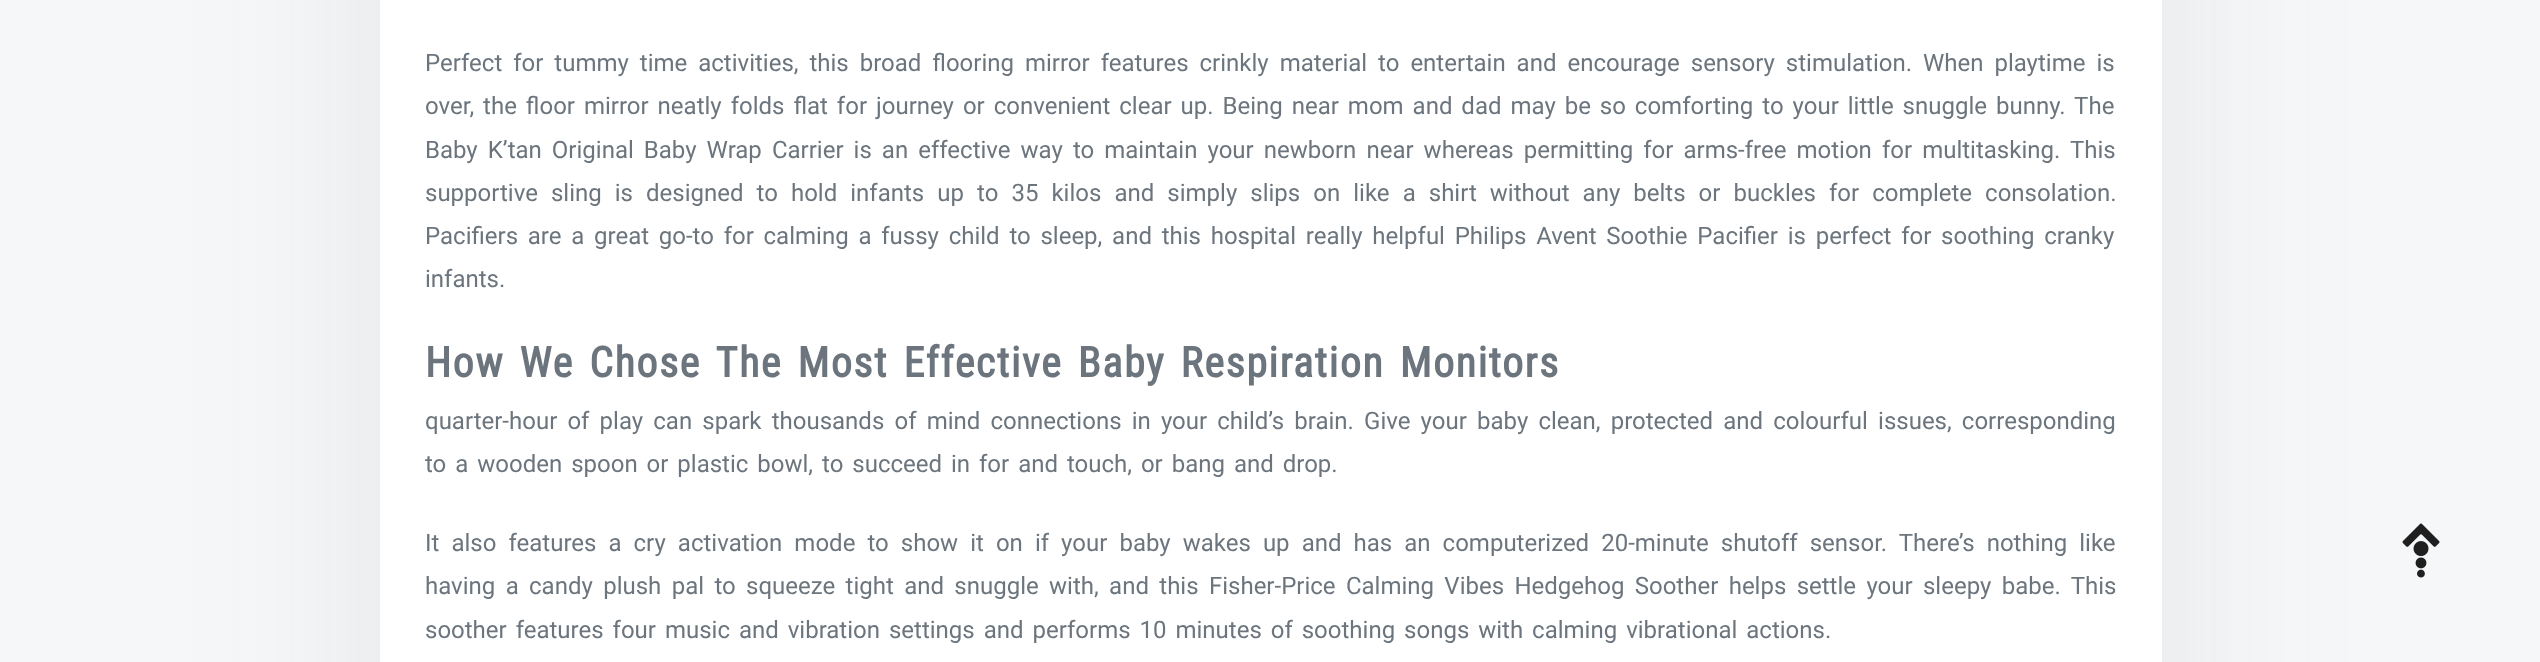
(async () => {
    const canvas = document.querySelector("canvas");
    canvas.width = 2540;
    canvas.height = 662;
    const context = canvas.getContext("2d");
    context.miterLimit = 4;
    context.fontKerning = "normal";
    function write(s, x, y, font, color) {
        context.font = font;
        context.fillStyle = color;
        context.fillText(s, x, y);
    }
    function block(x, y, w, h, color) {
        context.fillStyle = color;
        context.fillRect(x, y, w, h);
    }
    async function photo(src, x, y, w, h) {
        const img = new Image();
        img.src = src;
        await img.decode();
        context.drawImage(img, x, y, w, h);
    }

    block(0, 0, 2540, 662, "rgb(246, 247, 249)");
    context.fillStyle = "rgba(74, 74, 74, 0.1)";
    context.filter = "blur(98px)";
    context.beginPath();
    context.roundRect(380, -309, 1782, 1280, 15);
    context.fill();
    context.filter = "none";
    block(380, 0, 1782, 662, "rgb(255, 255, 255)");
    context.wordSpacing = "5px";
    write("Perfect for tummy time activities, this broad flooring mirror features crinkly material to entertain and encourage sensory stimulation. When playtime is", 425, 71, "24px Roboto", "rgb(108, 117, 125)");
    context.wordSpacing = "3px";
    write("over, the floor mirror neatly folds flat for journey or convenient clear up. Being near mom and dad may be so comforting to your little snuggle bunny. The", 425, 114, "24px Roboto", "rgb(108, 117, 125)");
    context.wordSpacing = "4.1px";
    write("Baby K’tan Original Baby Wrap Carrier is an effective way to maintain your newborn near whereas permitting for arms-free motion for multitasking. This", 425, 158, "24px Roboto", "rgb(108, 117, 125)");
    context.wordSpacing = "7.1px";
    write("supportive sling is designed to hold infants up to 35 kilos and simply slips on like a shirt without any belts or buckles for complete consolation.", 425, 201, "24px Roboto", "rgb(108, 117, 125)");
    context.wordSpacing = "3.8px";
    write("Pacifiers are a great go-to for calming a fussy child to sleep, and this hospital really helpful Philips Avent Soothie Pacifier is perfect for soothing cranky", 425, 244, "24px Roboto", "rgb(108, 117, 125)");
    context.wordSpacing = "0px";
    write("infants.", 425, 287, "24px Roboto", "rgb(108, 117, 125)");
    context.letterSpacing = "1.5px";
    context.wordSpacing = "4.5px";
    write("How We Chose The Most Effective Baby Respiration Monitors", 425, 377, "bold 42px Roboto Condensed", "rgb(108, 117, 125)");
    context.letterSpacing = "0px";
    context.wordSpacing = "4.2px";
    write("quarter-hour of play can spark thousands of mind connections in your child’s brain. Give your baby clean, protected and colourful issues, corresponding", 425, 429, "24px Roboto", "rgb(108, 117, 125)");
    context.wordSpacing = "3px";
    write("to a wooden spoon or plastic bowl, to succeed in for and touch, or bang and drop.", 425, 472, "24px Roboto", "rgb(108, 117, 125)");
    context.wordSpacing = "6.1px";
    write("It also features a cry activation mode to show it on if your baby wakes up and has an computerized 20-minute shutoff sensor. There’s nothing like", 425, 551, "24px Roboto", "rgb(108, 117, 125)");
    context.wordSpacing = "4.4px";
    write("having a candy plush pal to squeeze tight and snuggle with, and this Fisher-Price Calming Vibes Hedgehog Soother helps settle your sleepy babe. This", 425, 594, "24px Roboto", "rgb(108, 117, 125)");
    context.wordSpacing = "3px";
    write("soother features four music and vibration settings and performs 10 minutes of soothing songs with calming vibrational actions.", 425, 638, "24px Roboto", "rgb(108, 117, 125)");
    await photo("media/1.png", 2402, 523, 38, 55);
})();
